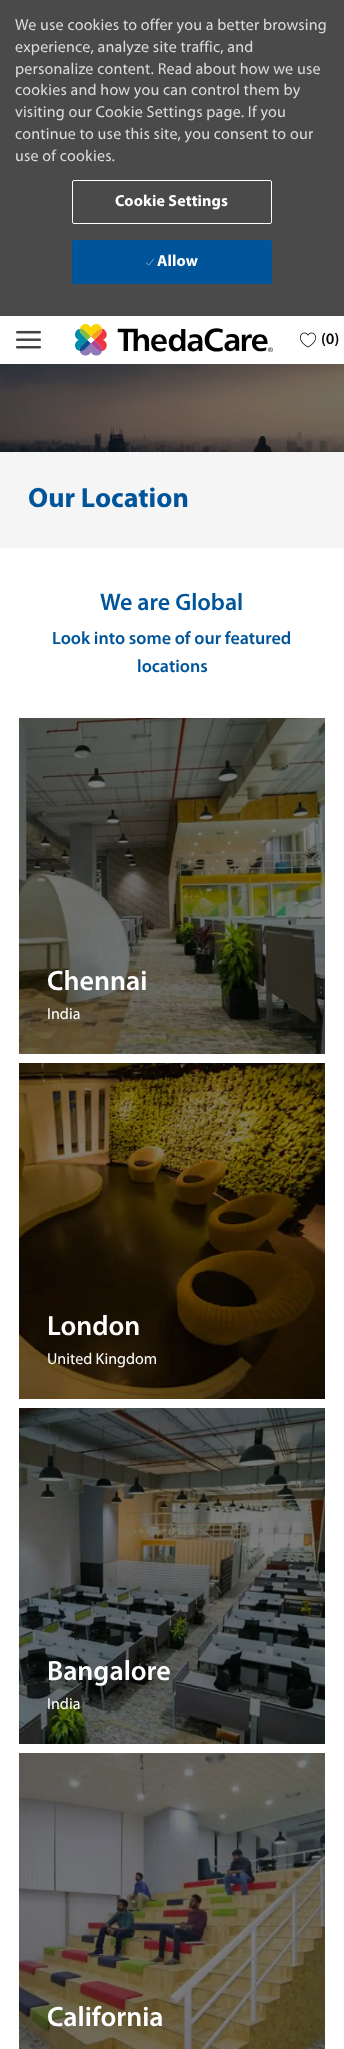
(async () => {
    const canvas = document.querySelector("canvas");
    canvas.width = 344;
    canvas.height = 2049;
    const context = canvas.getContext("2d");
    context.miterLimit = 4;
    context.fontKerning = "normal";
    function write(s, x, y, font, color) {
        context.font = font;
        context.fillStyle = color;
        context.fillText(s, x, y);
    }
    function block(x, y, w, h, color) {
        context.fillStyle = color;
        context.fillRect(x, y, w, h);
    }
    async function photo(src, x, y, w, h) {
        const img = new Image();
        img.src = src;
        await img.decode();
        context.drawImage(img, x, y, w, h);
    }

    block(0, 0, 344, 2049, "rgb(255, 255, 255)");
    block(0, 0, 344, 316, "rgb(74, 74, 74)");
    context.letterSpacing = "0.2px";
    write("We use cookies to offer you a better browsing", 15, 30, "16px Myriad", "rgb(219, 219, 219)");
    write("experience, analyze site traffic, and", 15, 52, "16px Myriad", "rgb(219, 219, 219)");
    write("personalize content. Read about how we use", 15, 74, "16px Myriad", "rgb(219, 219, 219)");
    write("cookies and how you can control them by", 15, 95, "16px Myriad", "rgb(219, 219, 219)");
    write("visiting our Cookie Settings page. If you", 15, 117, "16px Myriad", "rgb(219, 219, 219)");
    write("continue to use this site, you consent to our", 15, 139, "16px Myriad", "rgb(219, 219, 219)");
    write("use of cookies.", 15, 161, "16px Myriad", "rgb(219, 219, 219)");
    context.beginPath();
    context.roundRect(72.5, 180.5, 199, 43, 1.5);
    context.strokeStyle = "rgb(255, 255, 255)";
    context.stroke();
    context.letterSpacing = "0.1px";
    write("Cookie Settings", 115, 206, "bold 16px Myriad", "rgb(255, 255, 255)");
    context.fillStyle = "rgb(0, 85, 154)";
    context.beginPath();
    context.roundRect(72.5, 240.5, 199, 43, 1.5);
    context.fill();
    context.strokeStyle = "rgb(0, 85, 154)";
    context.stroke();
    await photo("media/1.png", 146, 258, 8, 8);
    write("Allow", 157, 266, "bold 16px Myriad", "rgb(255, 255, 255)");
    await photo("media/2.png", 16, 330, 25, 19);
    await photo("media/3.png", 75, 324, 198, 32);
    await photo("media/4.png", 300, 332, 16, 16);
    context.letterSpacing = "0px";
    write("(0)", 321, 344, "600 16px Myriad", "rgb(0, 0, 0)");
    block(0, 452, 344, 96, "rgb(245, 245, 245)");
    await photo("media/5.png", 0, 364, 344, 88);
    write("Our Location", 28, 507, "bold 28px Myriad", "rgb(0, 85, 154)");
    write("We are Global", 100, 610, "600 24px Myriad", "rgb(0, 85, 154)");
    write("Look into some of our featured", 52, 644, "600 18px Myriad", "rgb(0, 85, 154)");
    write("locations", 137, 672, "600 18px Myriad", "rgb(0, 85, 154)");
    await photo("media/6.png", 19, 718, 306, 336);
    write("Chennai", 47, 990, "600 28px Myriad", "rgb(255, 255, 255)");
    write("India", 47, 1019, "16px Myriad", "rgb(255, 255, 255)");
    await photo("media/7.png", 19, 1063, 306, 336);
    write("London", 47, 1335, "600 28px Myriad", "rgb(255, 255, 255)");
    write("United Kingdom", 47, 1364, "16px Myriad", "rgb(255, 255, 255)");
    await photo("media/8.png", 19, 1408, 306, 336);
    write("Bangalore", 47, 1680, "600 28px Myriad", "rgb(255, 255, 255)");
    write("India", 47, 1709, "16px Myriad", "rgb(255, 255, 255)");
    await photo("media/9.png", 19, 1753, 306, 296);
    write("California", 47, 2026, "600 28px Myriad", "rgb(255, 255, 255)");
})();
